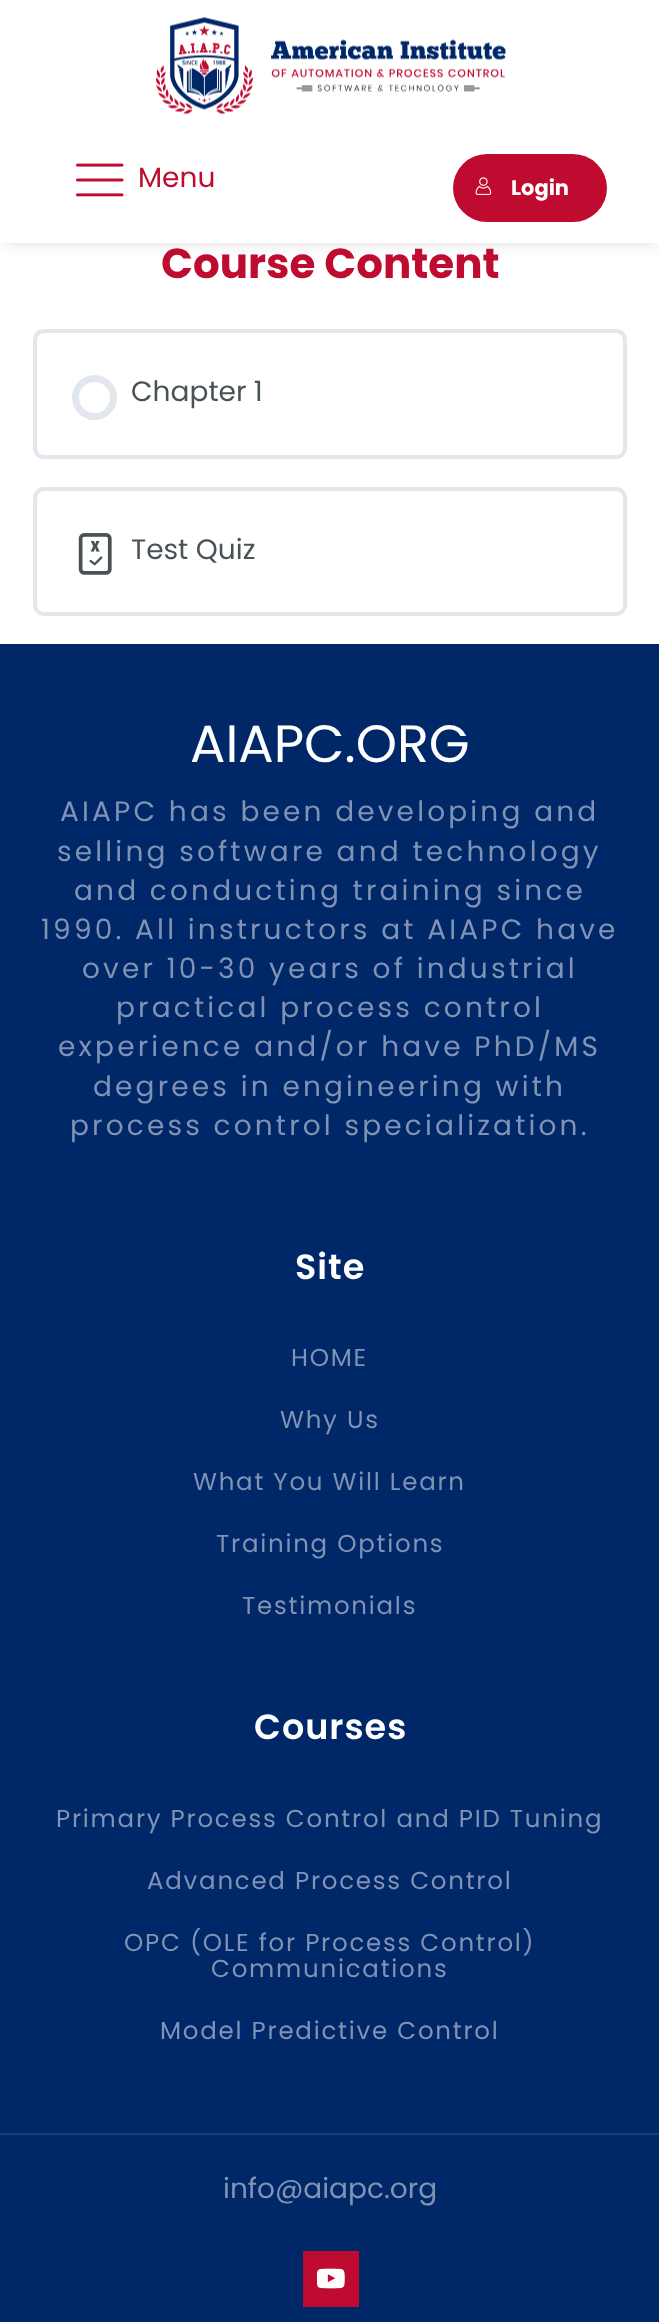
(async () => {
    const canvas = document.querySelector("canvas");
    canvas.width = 659;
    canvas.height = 2322;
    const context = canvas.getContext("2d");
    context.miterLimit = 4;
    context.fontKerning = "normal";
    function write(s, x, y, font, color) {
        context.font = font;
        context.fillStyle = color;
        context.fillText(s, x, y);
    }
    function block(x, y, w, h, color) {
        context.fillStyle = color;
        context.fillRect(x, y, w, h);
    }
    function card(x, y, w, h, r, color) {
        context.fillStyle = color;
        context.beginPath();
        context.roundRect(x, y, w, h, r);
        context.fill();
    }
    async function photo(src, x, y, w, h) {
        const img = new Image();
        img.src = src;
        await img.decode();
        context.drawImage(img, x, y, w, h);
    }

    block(0, 0, 659, 2322, "rgb(255, 255, 255)");
    context.fillStyle = "rgba(0, 0, 0, 0.2)";
    context.filter = "blur(9px)";
    context.beginPath();
    context.rect(5, 5, 651, 235);
    context.fill();
    context.filter = "none";
    block(0, 0, 659, 243, "rgb(255, 255, 255)");
    await photo("media/1.png", 156, 17, 350, 97);
    await photo("media/2.png", 76, 163, 48, 34);
    write("Menu", 138, 187, "28px Poppins", "rgb(191, 11, 48)");
    card(453, 154, 154, 68, 34, "rgb(191, 11, 48)");
    await photo("media/3.png", 475, 177, 17, 18);
    write("Login", 511, 195, "bold 21px Poppins", "rgb(255, 255, 255)");
    write("Course Content", 161, 278, "bold 42px Poppins", "rgb(191, 11, 48)");
    context.beginPath();
    context.roundRect(35, 331, 590, 126, 9);
    context.strokeStyle = "rgb(226, 231, 237)";
    context.lineWidth = 4;
    context.stroke();
    context.beginPath();
    context.arc(94.5, 397.5, 19, 0, Math.PI * 2);
    context.lineWidth = 7;
    context.stroke();
    write("Chapter 1", 131, 401, "28px Poppins", "rgb(73, 82, 85)");
    context.beginPath();
    context.roundRect(35, 489, 590, 125, 9);
    context.lineWidth = 4;
    context.stroke();
    await photo("media/4.png", 78, 533, 34, 42);
    write("Test Quiz", 131, 559, "28px Poppins", "rgb(73, 82, 85)");
    block(0, 644, 659, 1678, "rgb(0, 39, 104)");
    block(0, 2133, 659, 2, "rgb(26, 61, 119)");
    write("AIAPC.ORG", 190, 762, "52.5px Poppins", "rgb(255, 255, 255)");
    context.letterSpacing = "3.15px";
    write("AIAPC has been developing and", 60, 821, "28px Poppins", "rgb(128, 147, 180)");
    write("selling software and technology", 57, 861, "28px Poppins", "rgb(128, 147, 180)");
    write("and conducting training since", 74, 900, "28px Poppins", "rgb(128, 147, 180)");
    write("1990. All instructors at AIAPC have", 41, 939, "28px Poppins", "rgb(128, 147, 180)");
    write("over 10-30 years of industrial", 82, 978, "28px Poppins", "rgb(128, 147, 180)");
    write("practical process control", 116, 1017, "28px Poppins", "rgb(128, 147, 180)");
    write("experience and/or have PhD/MS", 58, 1056, "28px Poppins", "rgb(128, 147, 180)");
    write("degrees in engineering with", 93, 1096, "28px Poppins", "rgb(128, 147, 180)");
    write("process control specialization.", 70, 1135, "28px Poppins", "rgb(128, 147, 180)");
    context.letterSpacing = "1px";
    write("Site", 295, 1279, "600 35px Poppins", "rgb(255, 255, 255)");
    context.letterSpacing = "1.75px";
    write("HOME", 291, 1366, "24.5px Poppins", "rgb(128, 147, 180)");
    write("Why Us", 280, 1428, "24.5px Poppins", "rgb(128, 147, 180)");
    write("What You Will Learn", 193, 1490, "24.5px Poppins", "rgb(128, 147, 180)");
    write("Training Options", 216, 1552, "24.5px Poppins", "rgb(128, 147, 180)");
    write("Testimonials", 242, 1614, "24.5px Poppins", "rgb(128, 147, 180)");
    context.letterSpacing = "1px";
    write("Courses", 254, 1739, "600 35px Poppins", "rgb(255, 255, 255)");
    context.letterSpacing = "1.75px";
    write("Primary Process Control and PID Tuning", 56, 1827, "24.5px Poppins", "rgb(128, 147, 180)");
    write("Advanced Process Control", 147, 1889, "24.5px Poppins", "rgb(128, 147, 180)");
    write("OPC (OLE for Process Control)", 124, 1951, "24.5px Poppins", "rgb(128, 147, 180)");
    write("Communications", 211, 1977, "24.5px Poppins", "rgb(128, 147, 180)");
    write("Model Predictive Control", 160, 2039, "24.5px Poppins", "rgb(128, 147, 180)");
    context.letterSpacing = "0px";
    write("info@aiapc.org", 223, 2198, "28px Poppins", "rgb(128, 147, 180)");
    block(303, 2251, 56, 56, "rgb(191, 11, 48)");
    await photo("media/5.png", 317, 2268, 28, 21);
})();
